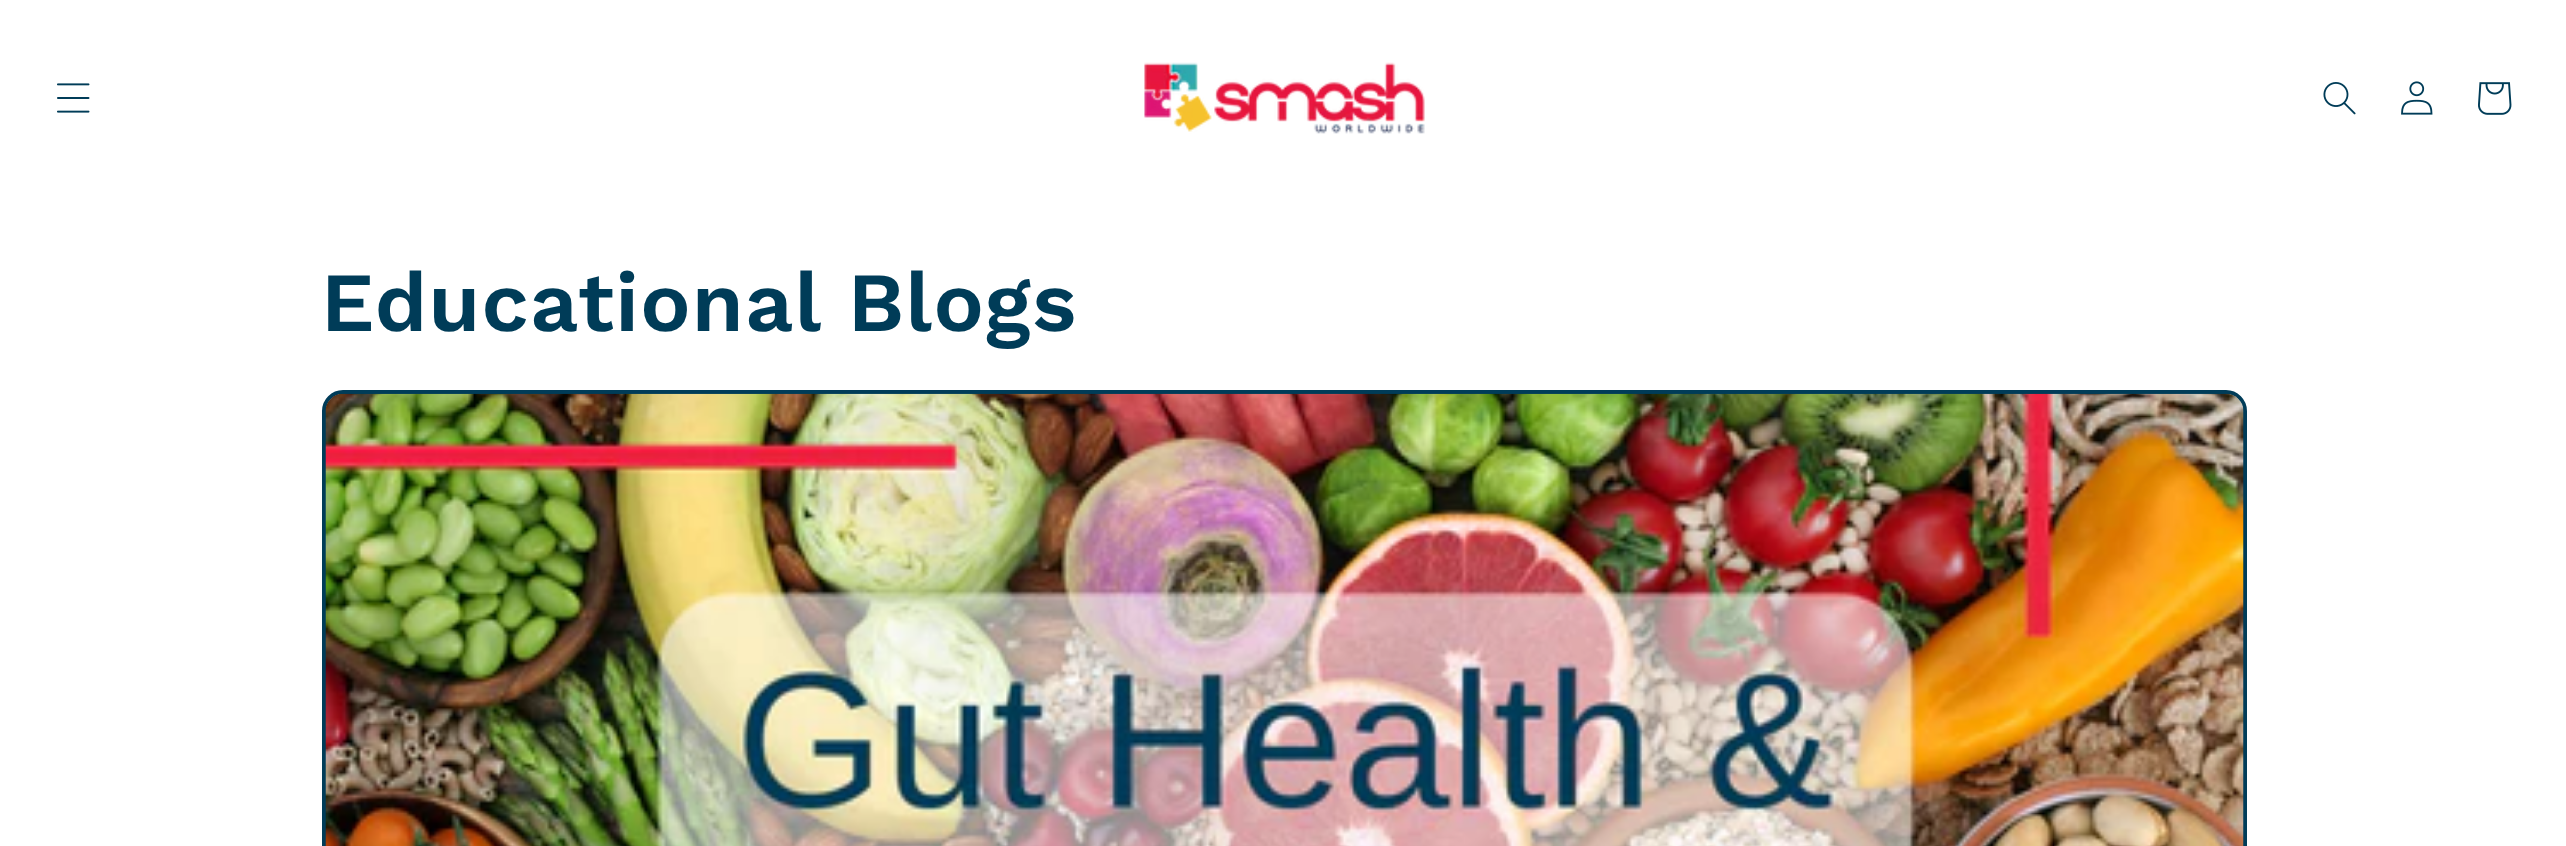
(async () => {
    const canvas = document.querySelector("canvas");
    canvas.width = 2566;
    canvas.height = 846;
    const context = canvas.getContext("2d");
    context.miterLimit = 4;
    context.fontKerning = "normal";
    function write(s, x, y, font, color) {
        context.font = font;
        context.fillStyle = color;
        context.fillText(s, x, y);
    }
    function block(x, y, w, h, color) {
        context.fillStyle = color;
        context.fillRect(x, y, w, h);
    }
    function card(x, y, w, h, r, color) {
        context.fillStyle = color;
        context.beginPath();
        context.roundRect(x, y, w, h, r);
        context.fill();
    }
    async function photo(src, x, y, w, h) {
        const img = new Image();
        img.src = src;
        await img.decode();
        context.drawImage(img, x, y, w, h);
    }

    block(0, 0, 2566, 846, "rgb(255, 255, 255)");
    await photo("media/1.png", 57, 83, 33, 30);
    await photo("media/2.png", 1144, 62, 281, 72);
    await photo("media/3.png", 2323, 82, 33, 33);
    await photo("media/4.png", 2401, 81, 32, 34);
    await photo("media/5.png", 2478, 82, 34, 33);
    context.letterSpacing = "1.25px";
    write("Educational Blogs", 321, 331, "600 84px Work Sans", "rgb(0, 60, 88)");
    context.beginPath();
    context.roundRect(324, 392, 1921, 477, 19);
    context.strokeStyle = "rgb(0, 60, 88)";
    context.lineWidth = 4;
    context.stroke();
    card(326, 394, 1918, 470, 18, "rgba(0, 60, 88, 0.1)");
    await photo("media/6.png", 325, 393, 1919, 453);
})();
